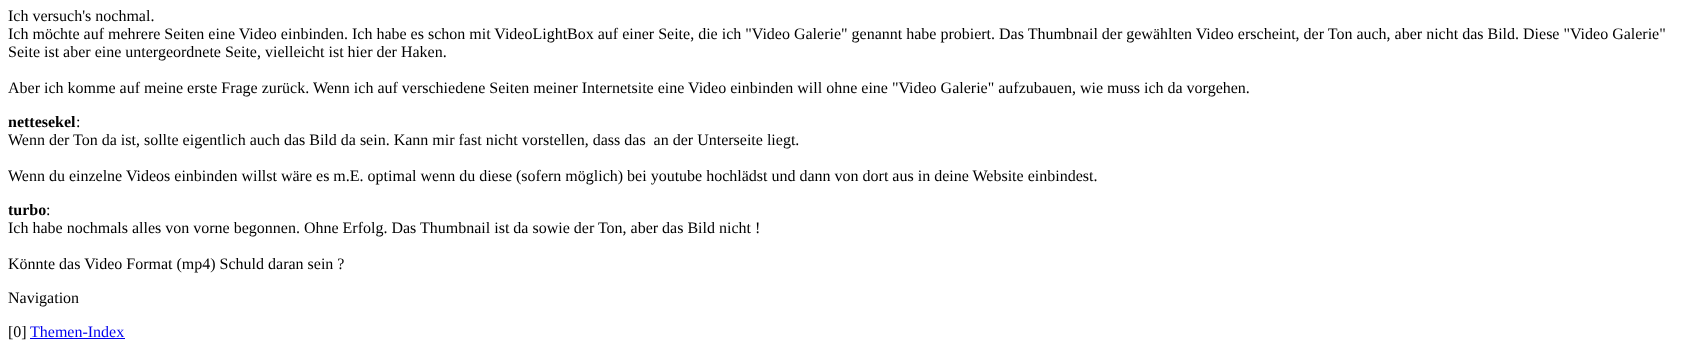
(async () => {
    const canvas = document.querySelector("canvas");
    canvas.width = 1695;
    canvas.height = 352;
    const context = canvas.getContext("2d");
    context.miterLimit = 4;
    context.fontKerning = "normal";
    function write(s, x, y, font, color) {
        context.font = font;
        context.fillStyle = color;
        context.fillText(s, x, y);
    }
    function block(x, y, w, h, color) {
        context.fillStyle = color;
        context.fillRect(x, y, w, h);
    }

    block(0, 0, 1695, 352, "rgb(255, 255, 255)");
    write("Ich versuch's nochmal.", 8, 21, "16px Liberation Serif", "rgb(0, 0, 0)");
    write("Ich möchte auf mehrere Seiten eine Video einbinden. Ich habe es schon mit VideoLightBox auf einer Seite, die ich \"Video Galerie\" genannt habe probiert. Das Thumbnail der gewählten Video erscheint, der Ton auch, aber nicht das Bild. Diese \"Video Galerie\"", 8, 39, "16px Liberation Serif", "rgb(0, 0, 0)");
    write("Seite ist aber eine untergeordnete Seite, vielleicht ist hier der Haken.", 8, 57, "16px Liberation Serif", "rgb(0, 0, 0)");
    write("Aber ich komme auf meine erste Frage zurück. Wenn ich auf verschiedene Seiten meiner Internetsite eine Video einbinden will ohne eine \"Video Galerie\" aufzubauen, wie muss ich da vorgehen.", 8, 93, "16px Liberation Serif", "rgb(0, 0, 0)");
    write("nettesekel", 8, 127, "bold 16px Liberation Serif", "rgb(0, 0, 0)");
    write(":", 76, 127, "16px Liberation Serif", "rgb(0, 0, 0)");
    write("Wenn der Ton da ist, sollte eigentlich auch das Bild da sein. Kann mir fast nicht vorstellen, dass das  an der Unterseite liegt.", 8, 145, "16px Liberation Serif", "rgb(0, 0, 0)");
    write("Wenn du einzelne Videos einbinden willst wäre es m.E. optimal wenn du diese (sofern möglich) bei youtube hochlädst und dann von dort aus in deine Website einbindest.", 8, 181, "16px Liberation Serif", "rgb(0, 0, 0)");
    write("turbo", 8, 215, "bold 16px Liberation Serif", "rgb(0, 0, 0)");
    write(":", 46, 215, "16px Liberation Serif", "rgb(0, 0, 0)");
    write("Ich habe nochmals alles von vorne begonnen. Ohne Erfolg. Das Thumbnail ist da sowie der Ton, aber das Bild nicht !", 8, 233, "16px Liberation Serif", "rgb(0, 0, 0)");
    write("Könnte das Video Format (mp4) Schuld daran sein ?", 8, 269, "16px Liberation Serif", "rgb(0, 0, 0)");
    write("Navigation", 8, 303, "16px Liberation Serif", "rgb(0, 0, 0)");
    write("[0]", 8, 337, "16px Liberation Serif", "rgb(0, 0, 0)");
    write("Themen-Index", 30, 337, "16px Liberation Serif", "rgb(0, 0, 238)");
    block(30, 338, 95, 1, "rgb(0, 0, 238)");
})();
